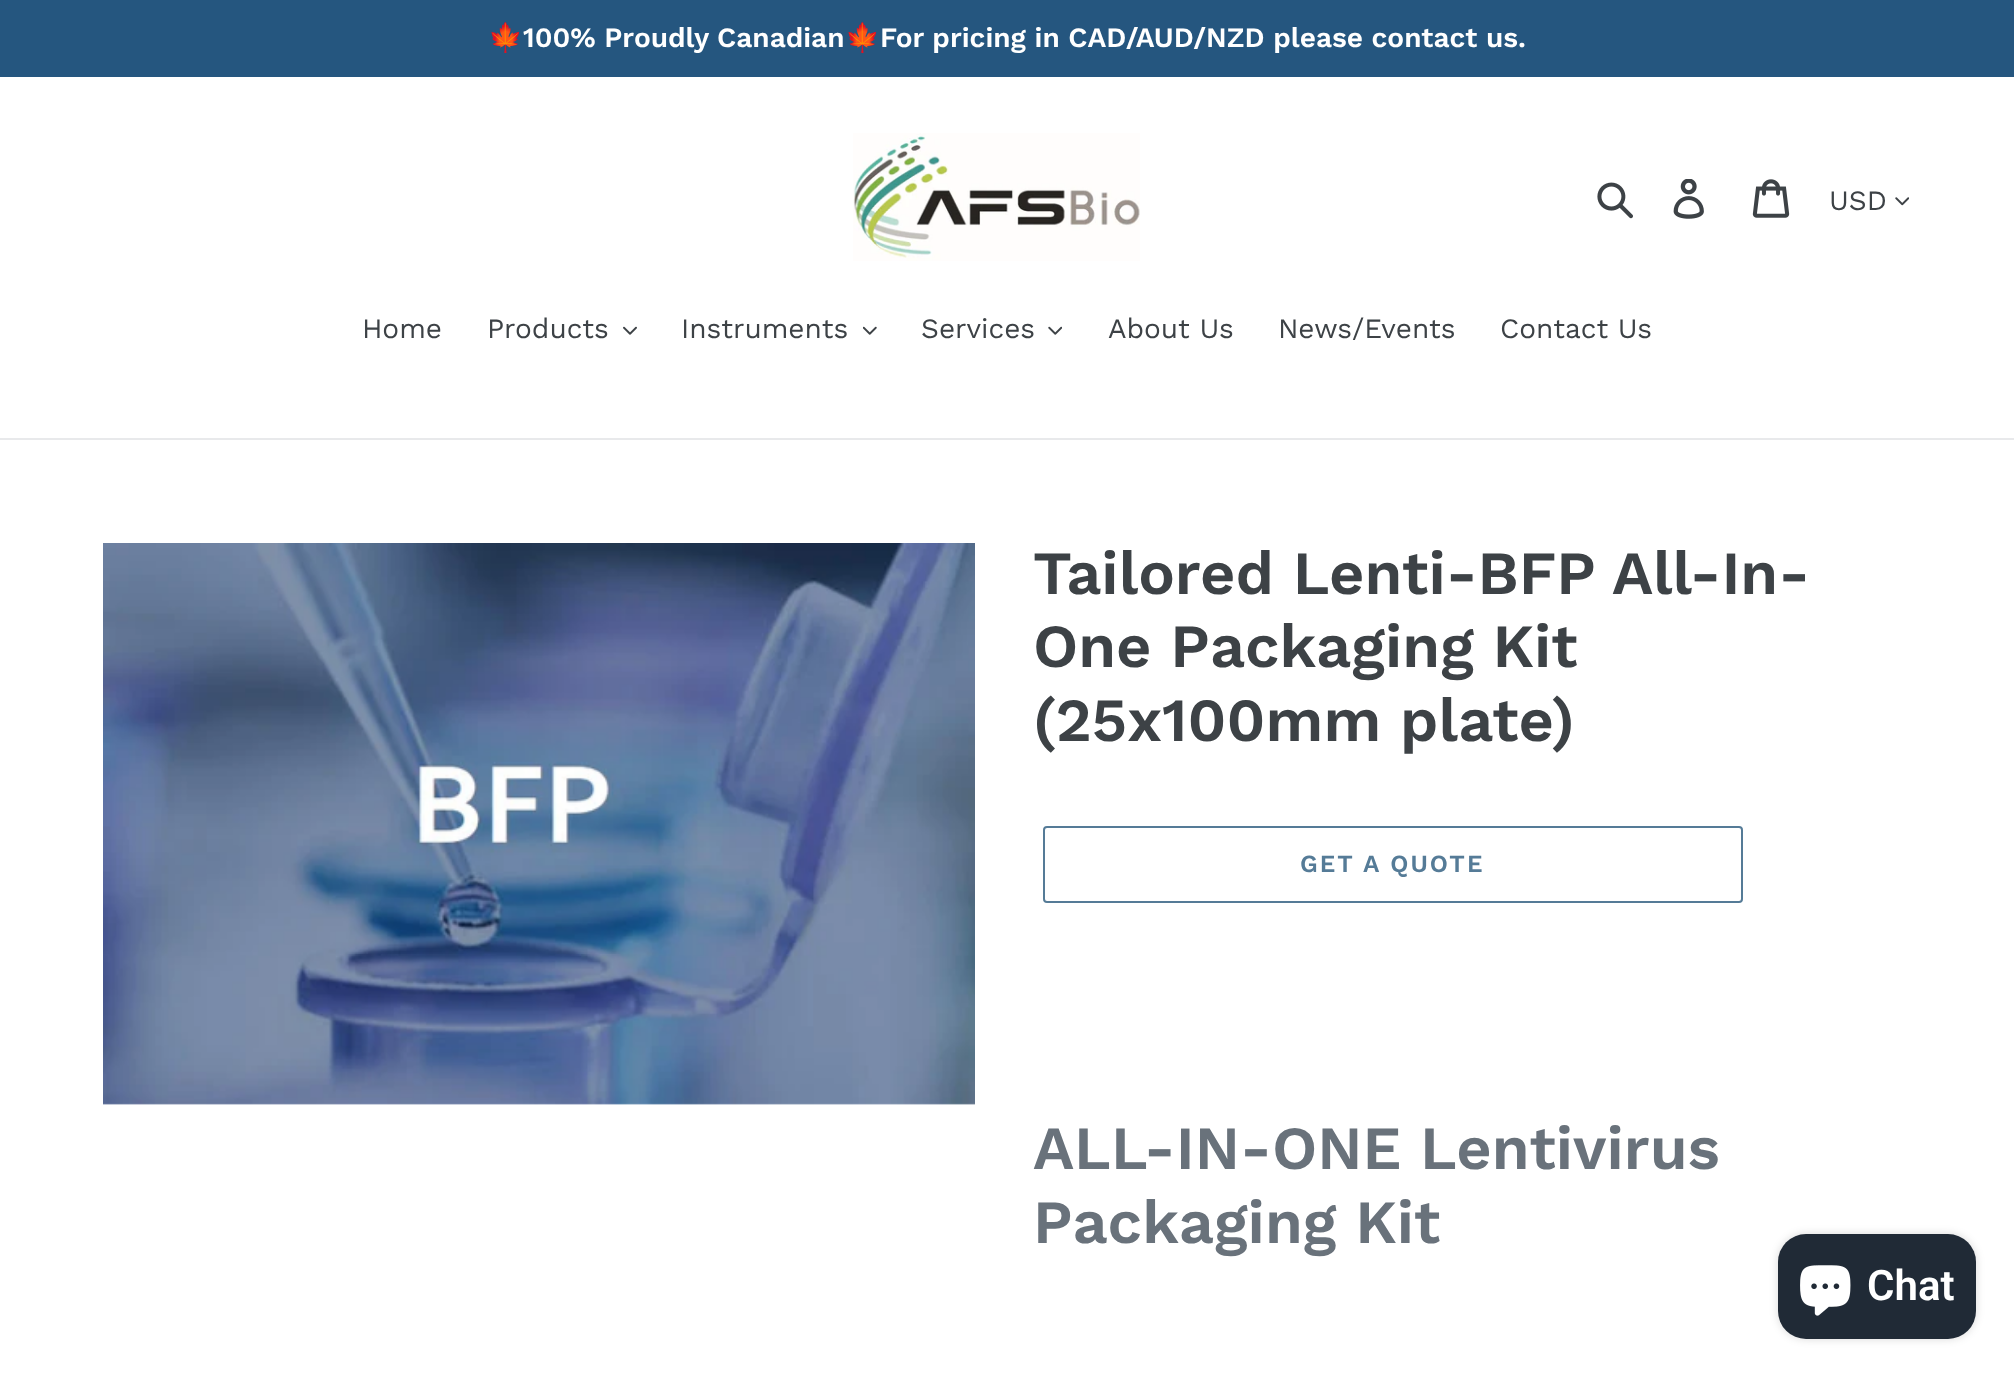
(async () => {
    const canvas = document.querySelector("canvas");
    canvas.width = 2014;
    canvas.height = 1375;
    const context = canvas.getContext("2d");
    context.miterLimit = 4;
    context.fontKerning = "normal";
    function write(s, x, y, font, color) {
        context.font = font;
        context.fillStyle = color;
        context.fillText(s, x, y);
    }
    function block(x, y, w, h, color) {
        context.fillStyle = color;
        context.fillRect(x, y, w, h);
    }
    function card(x, y, w, h, r, color) {
        context.fillStyle = color;
        context.beginPath();
        context.roundRect(x, y, w, h, r);
        context.fill();
    }
    async function photo(src, x, y, w, h) {
        const img = new Image();
        img.src = src;
        await img.decode();
        context.drawImage(img, x, y, w, h);
    }

    block(0, 0, 2014, 1375, "rgb(255, 255, 255)");
    block(0, 0, 2014, 77, "rgb(37, 86, 127)");
    write("🍁", 488, 47, "bold 28px Noto Color Emoji", "rgb(255, 255, 255)");
    write("100% Proudly Canadian", 523, 47, "600 28px Work Sans", "rgb(255, 255, 255)");
    write("🍁", 845, 47, "bold 28px Noto Color Emoji", "rgb(255, 255, 255)");
    write("For pricing in CAD/AUD/NZD please contact us.", 880, 47, "600 28px Work Sans", "rgb(255, 255, 255)");
    await photo("media/1.png", 853, 133, 287, 128);
    await photo("media/2.png", 1597, 182, 36, 37);
    await photo("media/3.png", 1673, 179, 31, 40);
    await photo("media/4.png", 1752, 179, 38, 39);
    write("USD", 1829, 210, "28px Work Sans", "rgb(61, 66, 70)");
    await photo("media/5.png", 1895, 197, 14, 9);
    block(0, 438, 2014, 2, "rgb(232, 233, 235)");
    write("Home", 362, 338, "28px Work Sans", "rgb(61, 66, 70)");
    write("Products", 487, 338, "28px Work Sans", "rgb(61, 66, 70)");
    await photo("media/6.png", 623, 326, 14, 9);
    write("Instruments", 681, 338, "28px Work Sans", "rgb(61, 66, 70)");
    await photo("media/7.png", 863, 326, 14, 9);
    write("Services", 921, 338, "28px Work Sans", "rgb(61, 66, 70)");
    await photo("media/8.png", 1048, 326, 14, 9);
    write("About Us", 1108, 338, "28px Work Sans", "rgb(61, 66, 70)");
    write("News/Events", 1278, 338, "28px Work Sans", "rgb(61, 66, 70)");
    write("Contact Us", 1500, 338, "28px Work Sans", "rgb(61, 66, 70)");
    await photo("media/9.png", 103, 543, 872, 562);
    write("Tailored Lenti-BFP All-In-", 1033, 594, "600 61.25px Work Sans", "rgb(61, 66, 70)");
    write("One Packaging Kit", 1033, 667, "600 61.25px Work Sans", "rgb(61, 66, 70)");
    write("(25x100mm plate)", 1033, 741, "600 61.25px Work Sans", "rgb(61, 66, 70)");
    context.beginPath();
    context.roundRect(1044, 827, 698, 75, 3);
    context.strokeStyle = "rgb(85, 123, 151)";
    context.lineWidth = 2;
    context.stroke();
    context.letterSpacing = "2px";
    write("GET A QUOTE", 1300, 872, "600 24.5px Work Sans", "rgb(85, 123, 151)");
    context.letterSpacing = "0px";
    write("ALL-IN-ONE Lentivirus", 1033, 1169, "600 61.25px Work Sans", "rgb(105, 114, 123)");
    write("Packaging Kit", 1033, 1243, "600 61.25px Work Sans", "rgb(105, 114, 123)");
    context.fillStyle = "rgba(0, 0, 0, 0.15)";
    context.filter = "blur(4.5px)";
    context.beginPath();
    context.roundRect(1778, 1234, 198, 105, 28);
    context.fill();
    context.filter = "none";
    card(1778, 1234, 198, 105, 28, "rgb(32, 42, 54)");
    await photo("media/10.png", 1800, 1265, 51, 51);
    write("Chat", 1867, 1300, "600 42px Roboto", "rgb(255, 255, 255)");
})();
